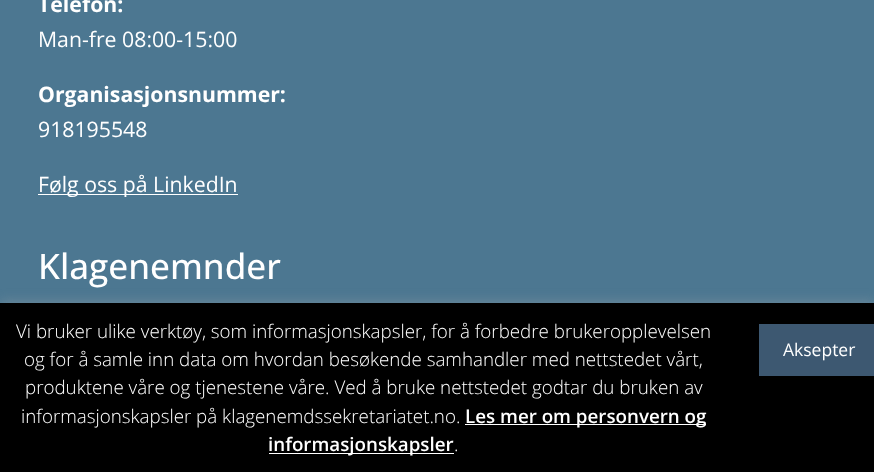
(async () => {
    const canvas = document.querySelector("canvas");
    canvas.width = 874;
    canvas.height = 472;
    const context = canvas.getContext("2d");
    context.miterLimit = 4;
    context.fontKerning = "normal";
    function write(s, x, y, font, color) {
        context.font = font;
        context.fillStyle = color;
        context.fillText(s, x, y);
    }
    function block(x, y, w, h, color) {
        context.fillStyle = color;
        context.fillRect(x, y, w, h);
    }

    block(0, 0, 874, 472, "rgb(76, 119, 145)");
    write("Telefon:", 38, 12, "bold 21.25px Open Sans", "rgb(255, 255, 255)");
    write("Man-fre 08:00-15:00", 38, 47, "21.25px Open Sans", "rgb(255, 255, 255)");
    write("Organisasjonsnummer:", 38, 102, "bold 21.25px Open Sans", "rgb(255, 255, 255)");
    write("918195548", 38, 137, "21.25px Open Sans", "rgb(255, 255, 255)");
    block(38, 194, 200, 1, "rgb(255, 255, 255)");
    write("Følg oss på LinkedIn", 38, 192, "21.25px Open Sans", "rgb(255, 255, 255)");
    write("Klagenemnder", 38, 279, "500 35px Open Sans", "rgb(255, 255, 255)");
    context.fillStyle = "rgba(172, 171, 171, 0.3)";
    context.filter = "blur(6px)";
    context.beginPath();
    context.rect(0, 301, 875, 170);
    context.fill();
    context.filter = "none";
    block(0, 303, 874, 169, "rgb(0, 0, 0)");
    write("Vi bruker ulike verktøy, som informasjonskapsler, for å forbedre brukeropplevelsen", 16, 338, "300 18.75px Open Sans", "rgb(255, 255, 255)");
    write("og for å samle inn data om hvordan besøkende samhandler med nettstedet vårt,", 24, 366, "300 18.75px Open Sans", "rgb(255, 255, 255)");
    write("produktene våre og tjenestene våre. Ved å bruke nettstedet godtar du bruken av", 25, 394, "300 18.75px Open Sans", "rgb(255, 255, 255)");
    write("informasjonskapsler på klagenemdssekretariatet.no.", 21, 423, "300 18.75px Open Sans", "rgb(255, 255, 255)");
    block(465, 424, 241, 1, "rgb(255, 255, 255)");
    write("Les mer om personvern og", 465, 423, "600 18.75px Open Sans", "rgb(255, 255, 255)");
    block(269, 453, 185, 1, "rgb(255, 255, 255)");
    write("informasjonskapsler", 268, 451, "600 18.75px Open Sans", "rgb(255, 255, 255)");
    write(".", 454, 451, "300 18.75px Open Sans", "rgb(255, 255, 255)");
    block(759, 324, 115, 52, "rgb(61, 88, 113)");
    write("Aksepter", 783, 356, "17.5px Open Sans", "rgb(255, 255, 255)");
})();
